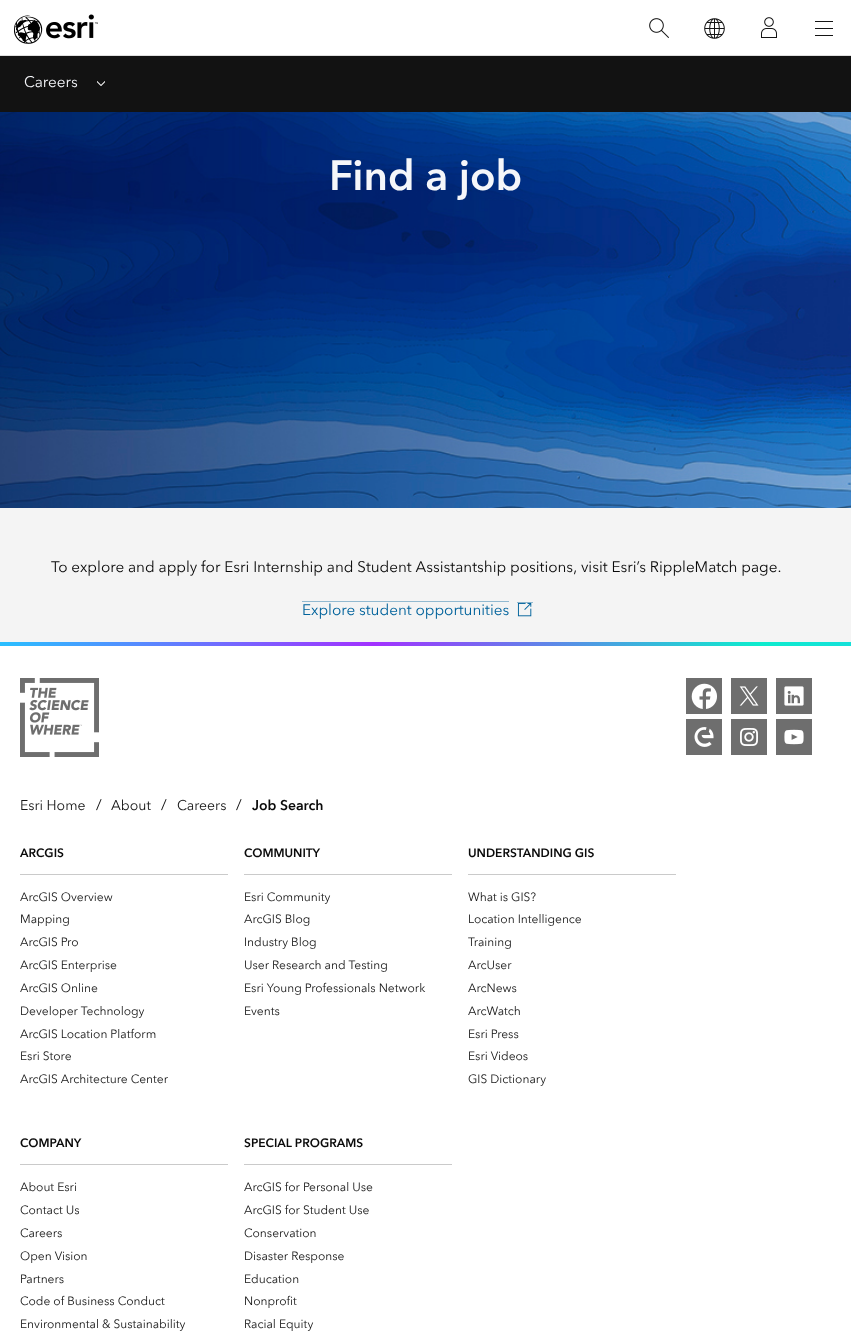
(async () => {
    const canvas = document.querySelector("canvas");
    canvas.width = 851;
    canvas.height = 1336;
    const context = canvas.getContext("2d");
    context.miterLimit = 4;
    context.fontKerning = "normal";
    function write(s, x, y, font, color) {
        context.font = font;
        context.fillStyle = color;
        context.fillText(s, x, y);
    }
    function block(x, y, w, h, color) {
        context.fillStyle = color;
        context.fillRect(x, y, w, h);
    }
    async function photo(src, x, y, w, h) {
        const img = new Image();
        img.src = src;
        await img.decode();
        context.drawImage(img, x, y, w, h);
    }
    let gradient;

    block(0, 0, 851, 1336, "rgb(255, 255, 255)");
    block(0, 55, 851, 1, "rgb(223, 223, 223)");
    await photo("media/1.png", 14, 14, 84, 30);
    await photo("media/2.png", 649, 18, 20, 20);
    await photo("media/3.png", 704, 18, 21, 21);
    await photo("media/4.png", 761, 17, 16, 21);
    await photo("media/5.png", 815, 21, 18, 15);
    block(0, 56, 851, 56, "rgb(18, 18, 18)");
    write("Careers", 24, 87, "15.25px Avenir Next", "rgb(245, 246, 250)");
    await photo("media/6.png", 97, 81, 8, 5);
    await photo("media/7.png", 0, 112, 851, 396);
    write("Find a job", 329, 190, "bold 42px Avenir Next", "rgb(245, 246, 250)");
    block(0, 508, 851, 134, "rgb(244, 244, 244)");
    write("To explore and apply for Esri Internship and Student Assistantship positions, visit Esri’s RippleMatch page.", 51, 572, "15.25px Avenir Next", "rgb(10, 10, 10)");
    block(302, 601, 207, 1, "rgb(146, 185, 208)");
    block(517, 602, 16, 1, "rgb(146, 185, 208)");
    write("Explore student opportunities", 302, 615, "15.25px Avenir Next", "rgb(0, 98, 155)");
    await photo("media/8.png", 517, 602, 15, 15);
    gradient = context.createLinearGradient(0, 644, 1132, 644);
    gradient.addColorStop(0, "rgb(41, 191, 255)");
    gradient.addColorStop(0.33, "rgb(162, 49, 255)");
    gradient.addColorStop(0.67, "rgb(13, 236, 205)");
    gradient.addColorStop(1, "rgb(41, 191, 255)");
    context.fillStyle = gradient;
    context.fillRect(0, 642, 851, 4);
    await photo("media/9.png", 20, 678, 79, 79);
    block(686, 678, 36, 36, "rgb(110, 110, 110)");
    await photo("media/10.png", 691, 683, 26, 26);
    block(731, 678, 36, 36, "rgb(110, 110, 110)");
    await photo("media/11.png", 739, 686, 20, 20);
    block(776, 678, 36, 36, "rgb(110, 110, 110)");
    await photo("media/12.png", 784, 686, 20, 20);
    block(686, 719, 36, 36, "rgb(110, 110, 110)");
    await photo("media/13.png", 694, 727, 20, 20);
    block(731, 719, 36, 36, "rgb(110, 110, 110)");
    await photo("media/14.png", 740, 728, 18, 18);
    block(776, 719, 36, 36, "rgb(110, 110, 110)");
    await photo("media/15.png", 784, 729, 20, 16);
    write("Esri Home", 20, 810, "14px Avenir Next", "rgb(21, 21, 21)");
    write("/", 96, 810, "15.25px Avenir Next", "rgb(10, 10, 10)");
    write("About", 111, 810, "14px Avenir Next", "rgb(21, 21, 21)");
    write("/", 161, 810, "15.25px Avenir Next", "rgb(10, 10, 10)");
    write("Careers", 177, 810, "14px Avenir Next", "rgb(21, 21, 21)");
    write("/", 236, 810, "15.25px Avenir Next", "rgb(10, 10, 10)");
    write("Job Search", 252, 810, "bold 14px Avenir Next", "rgb(10, 10, 10)");
    write("ARCGIS", 20, 857, "bold 12px Avenir Next", "rgb(10, 10, 10)");
    block(20, 874, 208, 1, "rgb(202, 202, 202)");
    write("ArcGIS Overview", 20, 901, "12px Avenir Next", "rgb(21, 21, 21)");
    write("Mapping", 20, 923, "12px Avenir Next", "rgb(21, 21, 21)");
    write("ArcGIS Pro", 20, 946, "12px Avenir Next", "rgb(21, 21, 21)");
    write("ArcGIS Enterprise", 20, 969, "12px Avenir Next", "rgb(21, 21, 21)");
    write("ArcGIS Online", 20, 992, "12px Avenir Next", "rgb(21, 21, 21)");
    write("Developer Technology", 20, 1015, "12px Avenir Next", "rgb(21, 21, 21)");
    write("ArcGIS Location Platform", 20, 1038, "12px Avenir Next", "rgb(21, 21, 21)");
    write("Esri Store", 20, 1060, "12px Avenir Next", "rgb(21, 21, 21)");
    write("ArcGIS Architecture Center", 20, 1083, "12px Avenir Next", "rgb(21, 21, 21)");
    write("COMMUNITY", 244, 857, "bold 12px Avenir Next", "rgb(10, 10, 10)");
    block(244, 874, 208, 1, "rgb(202, 202, 202)");
    write("Esri Community", 244, 901, "12px Avenir Next", "rgb(21, 21, 21)");
    write("ArcGIS Blog", 244, 923, "12px Avenir Next", "rgb(21, 21, 21)");
    write("Industry Blog", 244, 946, "12px Avenir Next", "rgb(21, 21, 21)");
    write("User Research and Testing", 244, 969, "12px Avenir Next", "rgb(21, 21, 21)");
    write("Esri Young Professionals Network", 244, 992, "12px Avenir Next", "rgb(21, 21, 21)");
    write("Events", 244, 1015, "12px Avenir Next", "rgb(21, 21, 21)");
    write("UNDERSTANDING GIS", 468, 857, "bold 12px Avenir Next", "rgb(10, 10, 10)");
    block(468, 874, 208, 1, "rgb(202, 202, 202)");
    write("What is GIS?", 468, 901, "12px Avenir Next", "rgb(21, 21, 21)");
    write("Location Intelligence", 468, 923, "12px Avenir Next", "rgb(21, 21, 21)");
    write("Training", 468, 946, "12px Avenir Next", "rgb(21, 21, 21)");
    write("ArcUser", 468, 969, "12px Avenir Next", "rgb(21, 21, 21)");
    write("ArcNews", 468, 992, "12px Avenir Next", "rgb(21, 21, 21)");
    write("ArcWatch", 468, 1015, "12px Avenir Next", "rgb(21, 21, 21)");
    write("Esri Press", 468, 1038, "12px Avenir Next", "rgb(21, 21, 21)");
    write("Esri Videos", 468, 1060, "12px Avenir Next", "rgb(21, 21, 21)");
    write("GIS Dictionary", 468, 1083, "12px Avenir Next", "rgb(21, 21, 21)");
    write("COMPANY", 20, 1147, "bold 12px Avenir Next", "rgb(10, 10, 10)");
    block(20, 1164, 208, 1, "rgb(202, 202, 202)");
    write("About Esri", 20, 1191, "12px Avenir Next", "rgb(21, 21, 21)");
    write("Contact Us", 20, 1214, "12px Avenir Next", "rgb(21, 21, 21)");
    write("Careers", 20, 1237, "12px Avenir Next", "rgb(21, 21, 21)");
    write("Open Vision", 20, 1260, "12px Avenir Next", "rgb(21, 21, 21)");
    write("Partners", 20, 1283, "12px Avenir Next", "rgb(21, 21, 21)");
    write("Code of Business Conduct", 20, 1305, "12px Avenir Next", "rgb(21, 21, 21)");
    write("Environmental & Sustainability", 20, 1328, "12px Avenir Next", "rgb(21, 21, 21)");
    write("SPECIAL PROGRAMS", 244, 1147, "bold 12px Avenir Next", "rgb(10, 10, 10)");
    block(244, 1164, 208, 1, "rgb(202, 202, 202)");
    write("ArcGIS for Personal Use", 244, 1191, "12px Avenir Next", "rgb(21, 21, 21)");
    write("ArcGIS for Student Use", 244, 1214, "12px Avenir Next", "rgb(21, 21, 21)");
    write("Conservation", 244, 1237, "12px Avenir Next", "rgb(21, 21, 21)");
    write("Disaster Response", 244, 1260, "12px Avenir Next", "rgb(21, 21, 21)");
    write("Education", 244, 1283, "12px Avenir Next", "rgb(21, 21, 21)");
    write("Nonprofit", 244, 1305, "12px Avenir Next", "rgb(21, 21, 21)");
    write("Racial Equity", 244, 1328, "12px Avenir Next", "rgb(21, 21, 21)");
})();
